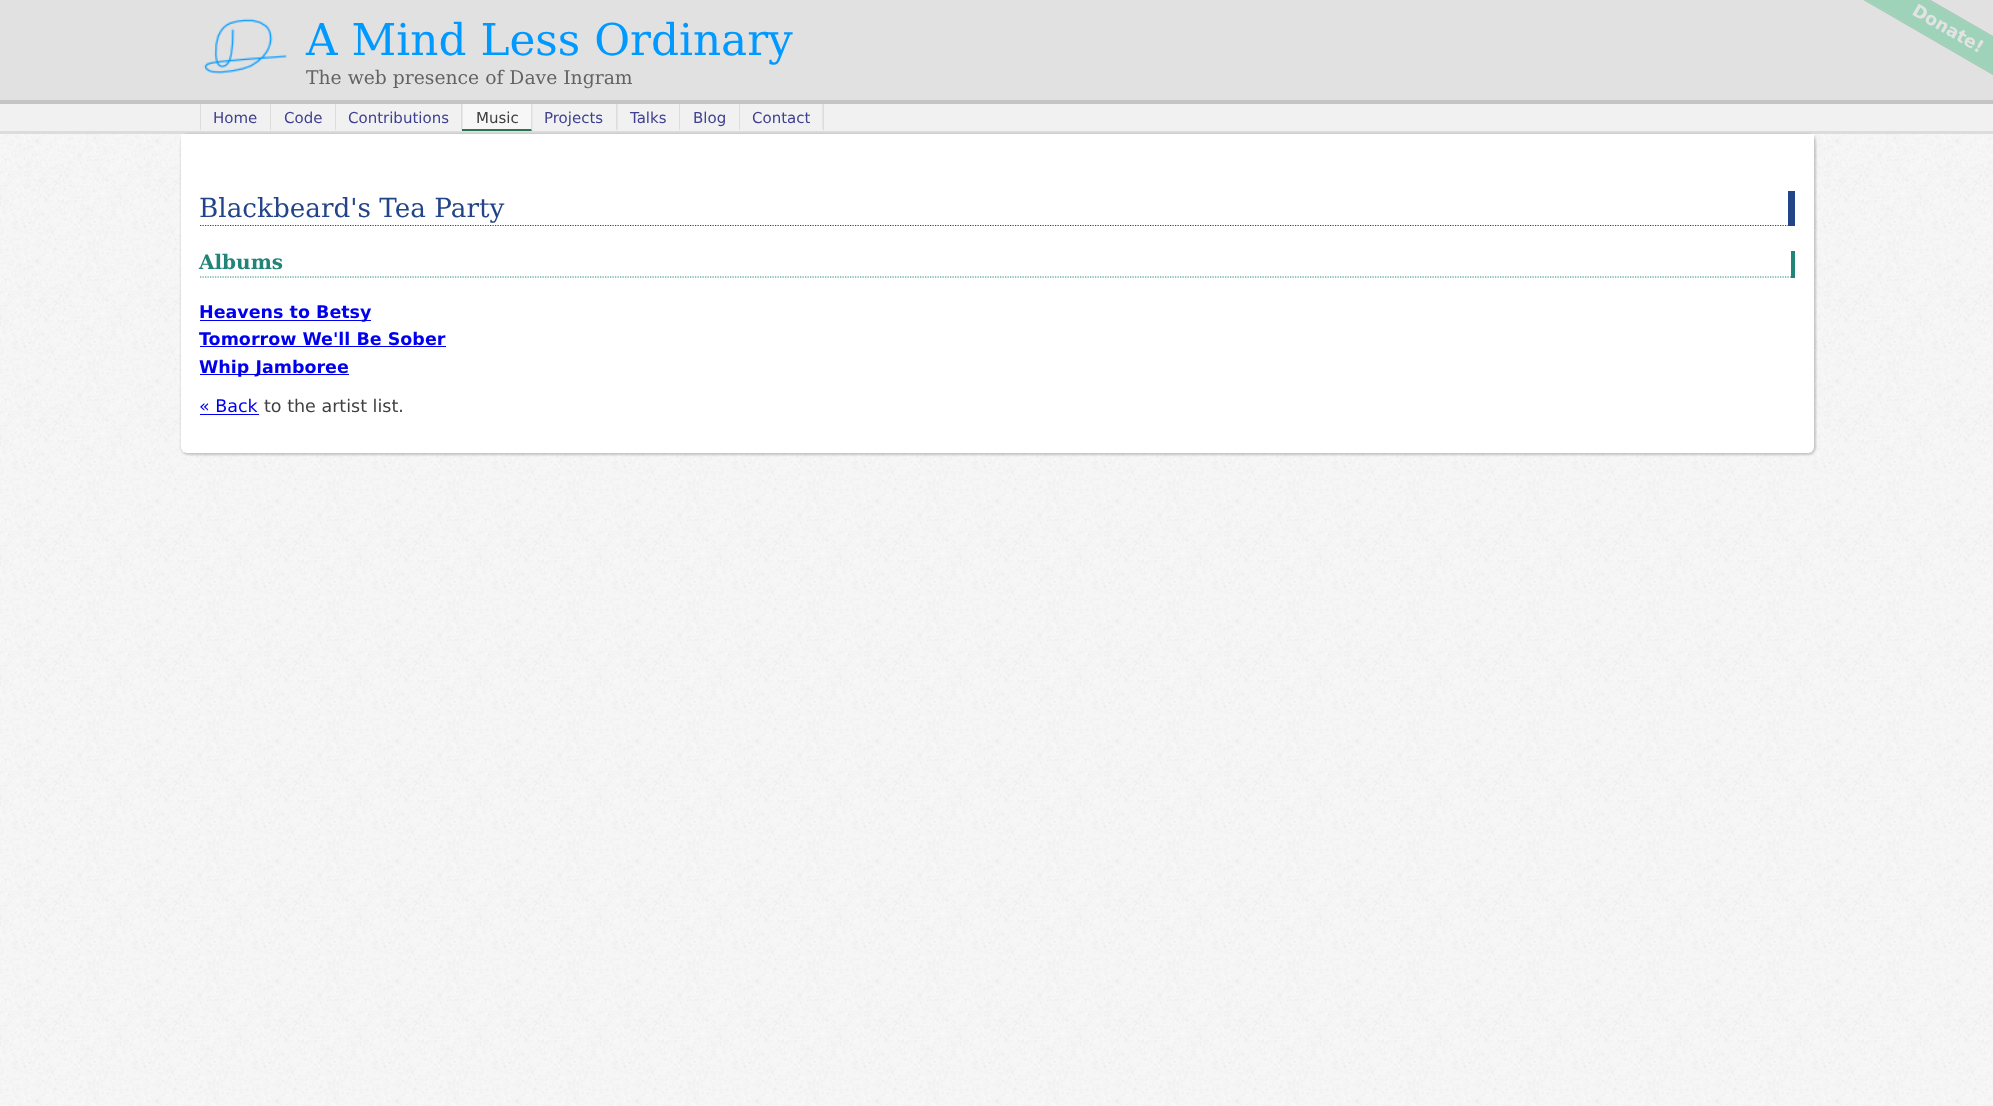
(async () => {
    const canvas = document.querySelector("canvas");
    canvas.width = 1993;
    canvas.height = 1106;
    const context = canvas.getContext("2d");
    context.miterLimit = 4;
    context.fontKerning = "normal";
    function write(s, x, y, font, color) {
        context.font = font;
        context.fillStyle = color;
        context.fillText(s, x, y);
    }
    function block(x, y, w, h, color) {
        context.fillStyle = color;
        context.fillRect(x, y, w, h);
    }
    async function photo(src, x, y, w, h) {
        const img = new Image();
        img.src = src;
        await img.decode();
        context.drawImage(img, x, y, w, h);
    }

    block(0, 0, 1993, 1106, "rgb(255, 255, 255)");
    await photo("media/1.png", 0, 134, 1993, 972);
    block(0, 0, 1993, 100, "rgb(225, 225, 225)");
    block(0, 100, 1993, 4, "rgb(196, 196, 196)");
    await photo("media/2.png", 203, 18, 84, 56);
    write("A Mind Less Ordinary", 306, 55, "43.75px DejaVu Serif", "rgb(0, 153, 255)");
    write("The web presence of Dave Ingram", 306, 84, "18.75px DejaVu Serif", "rgb(99, 99, 99)");
    context.fillStyle = "rgb(158, 211, 185)";
    context.beginPath();
    context.moveTo(1862, -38);
    context.lineTo(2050, 70);
    context.lineTo(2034, 97);
    context.lineTo(1846, -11);
    context.closePath();
    context.fill();
    context.fillStyle = "rgb(158, 201, 180)";
    context.beginPath();
    context.moveTo(1863, -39);
    context.lineTo(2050, 69);
    context.lineTo(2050, 70);
    context.lineTo(1862, -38);
    context.closePath();
    context.fill();
    context.beginPath();
    context.moveTo(1846, -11);
    context.lineTo(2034, 97);
    context.lineTo(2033, 98);
    context.lineTo(1846, -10);
    context.closePath();
    context.fill();
    context.font = "bold 17.5px DejaVu Sans";
    context.fillStyle = "rgb(227, 227, 227)";
    context.save();
    context.translate(1911, 14);
    context.rotate(30 * Math.PI / 180);
    context.fillText("Donate!", 0, 0);
    context.restore();
    block(0, 104, 1993, 27, "rgb(241, 241, 241)");
    block(0, 131, 1993, 3, "rgb(220, 220, 220)");
    context.fillStyle = "rgba(0, 0, 0, 0.2)";
    context.filter = "blur(1px)";
    context.beginPath();
    context.roundRect(181, 134, 1635, 321, 8);
    context.fill();
    context.filter = "none";
    context.fillStyle = "rgb(220, 220, 220)";
    context.beginPath();
    context.moveTo(271, 104);
    context.lineTo(271, 131);
    context.lineTo(270, 129);
    context.lineTo(270, 104);
    context.closePath();
    context.fill();
    context.beginPath();
    context.moveTo(200, 131);
    context.lineTo(200, 104);
    context.lineTo(201, 104);
    context.lineTo(201, 129);
    context.closePath();
    context.fill();
    write("Home", 213, 123, "15px DejaVu Sans", "rgb(64, 64, 144)");
    context.fillStyle = "rgb(220, 220, 220)";
    context.beginPath();
    context.moveTo(336, 104);
    context.lineTo(336, 131);
    context.lineTo(335, 129);
    context.lineTo(335, 104);
    context.closePath();
    context.fill();
    write("Code", 284, 123, "15px DejaVu Sans", "rgb(64, 64, 144)");
    context.fillStyle = "rgb(220, 220, 220)";
    context.beginPath();
    context.moveTo(462.5, 104);
    context.lineTo(462.5, 131);
    context.lineTo(461, 129);
    context.lineTo(461, 104);
    context.closePath();
    context.fill();
    write("Contributions", 348, 123, "15px DejaVu Sans", "rgb(64, 64, 144)");
    block(463, 104, 70, 27, "rgb(247, 247, 247)");
    context.fillStyle = "rgb(220, 220, 220)";
    context.beginPath();
    context.moveTo(532.5, 104);
    context.lineTo(532.5, 131);
    context.lineTo(531, 129);
    context.lineTo(531, 104);
    context.closePath();
    context.fill();
    context.fillStyle = "rgb(39, 118, 80)";
    context.beginPath();
    context.moveTo(532, 131);
    context.lineTo(462, 131);
    context.lineTo(462, 129);
    context.lineTo(531, 129);
    context.closePath();
    context.fill();
    write("Music", 476, 123, "15px DejaVu Sans", "rgb(64, 64, 64)");
    context.fillStyle = "rgb(220, 220, 220)";
    context.beginPath();
    context.moveTo(617.5, 104);
    context.lineTo(617.5, 131);
    context.lineTo(616, 129);
    context.lineTo(616, 104);
    context.closePath();
    context.fill();
    write("Projects", 544, 123, "15px DejaVu Sans", "rgb(64, 64, 144)");
    context.fillStyle = "rgb(220, 220, 220)";
    context.beginPath();
    context.moveTo(680, 104);
    context.lineTo(680, 131);
    context.lineTo(679, 129);
    context.lineTo(679, 104);
    context.closePath();
    context.fill();
    write("Talks", 630, 123, "15px DejaVu Sans", "rgb(64, 64, 144)");
    context.fillStyle = "rgb(220, 220, 220)";
    context.beginPath();
    context.moveTo(740, 104);
    context.lineTo(740, 131);
    context.lineTo(739, 129);
    context.lineTo(739, 104);
    context.closePath();
    context.fill();
    write("Blog", 693, 123, "15px DejaVu Sans", "rgb(64, 64, 144)");
    context.fillStyle = "rgb(220, 220, 220)";
    context.beginPath();
    context.moveTo(824, 104);
    context.lineTo(824, 131);
    context.lineTo(822.5, 129);
    context.lineTo(822.5, 104);
    context.closePath();
    context.fill();
    write("Contact", 752, 123, "15px DejaVu Sans", "rgb(64, 64, 144)");
    context.fillStyle = "rgb(255, 255, 255)";
    context.beginPath();
    context.roundRect(181, 134, 1633, 319, [0, 0, 6, 6]);
    context.fill();
    block(1788, 191, 7, 35, "rgb(34, 68, 136)");
    context.beginPath();
    context.moveTo(200, 225.5);
    context.lineTo(1795, 225.5);
    context.strokeStyle = "rgb(34, 68, 136)";
    context.lineWidth = 1.2;
    context.setLineDash([1.25, 1.25]);
    context.stroke();
    write("Blackbeard's Tea Party", 199, 217, "26.25px DejaVu Serif", "rgb(34, 68, 136)");
    block(1791, 251, 4, 27, "rgb(33, 132, 119)");
    context.beginPath();
    context.moveTo(200, 277);
    context.lineTo(1795, 277);
    context.strokeStyle = "rgb(33, 132, 119)";
    context.stroke();
    write("Albums", 199, 269, "bold 20px DejaVu Serif", "rgb(33, 132, 119)");
    block(200, 320, 171, 1, "rgb(0, 0, 238)");
    write("Heavens to Betsy", 199, 318, "bold 17.5px DejaVu Sans", "rgb(0, 0, 238)");
    write("Tomorrow We'll Be Sober", 199, 345, "bold 17.5px DejaVu Sans", "rgb(0, 0, 238)");
    block(200, 346, 246, 1, "rgb(0, 0, 238)");
    block(200, 374, 149, 1, "rgb(0, 0, 238)");
    write("Whip Jamboree", 199, 373, "bold 17.5px DejaVu Sans", "rgb(0, 0, 238)");
    write("« Back", 199, 412, "17.5px DejaVu Sans", "rgb(0, 0, 238)");
    block(200, 414, 59, 1, "rgb(0, 0, 238)");
    write("to the artist list.", 264, 412, "17.5px DejaVu Sans", "rgb(64, 64, 64)");
})();
